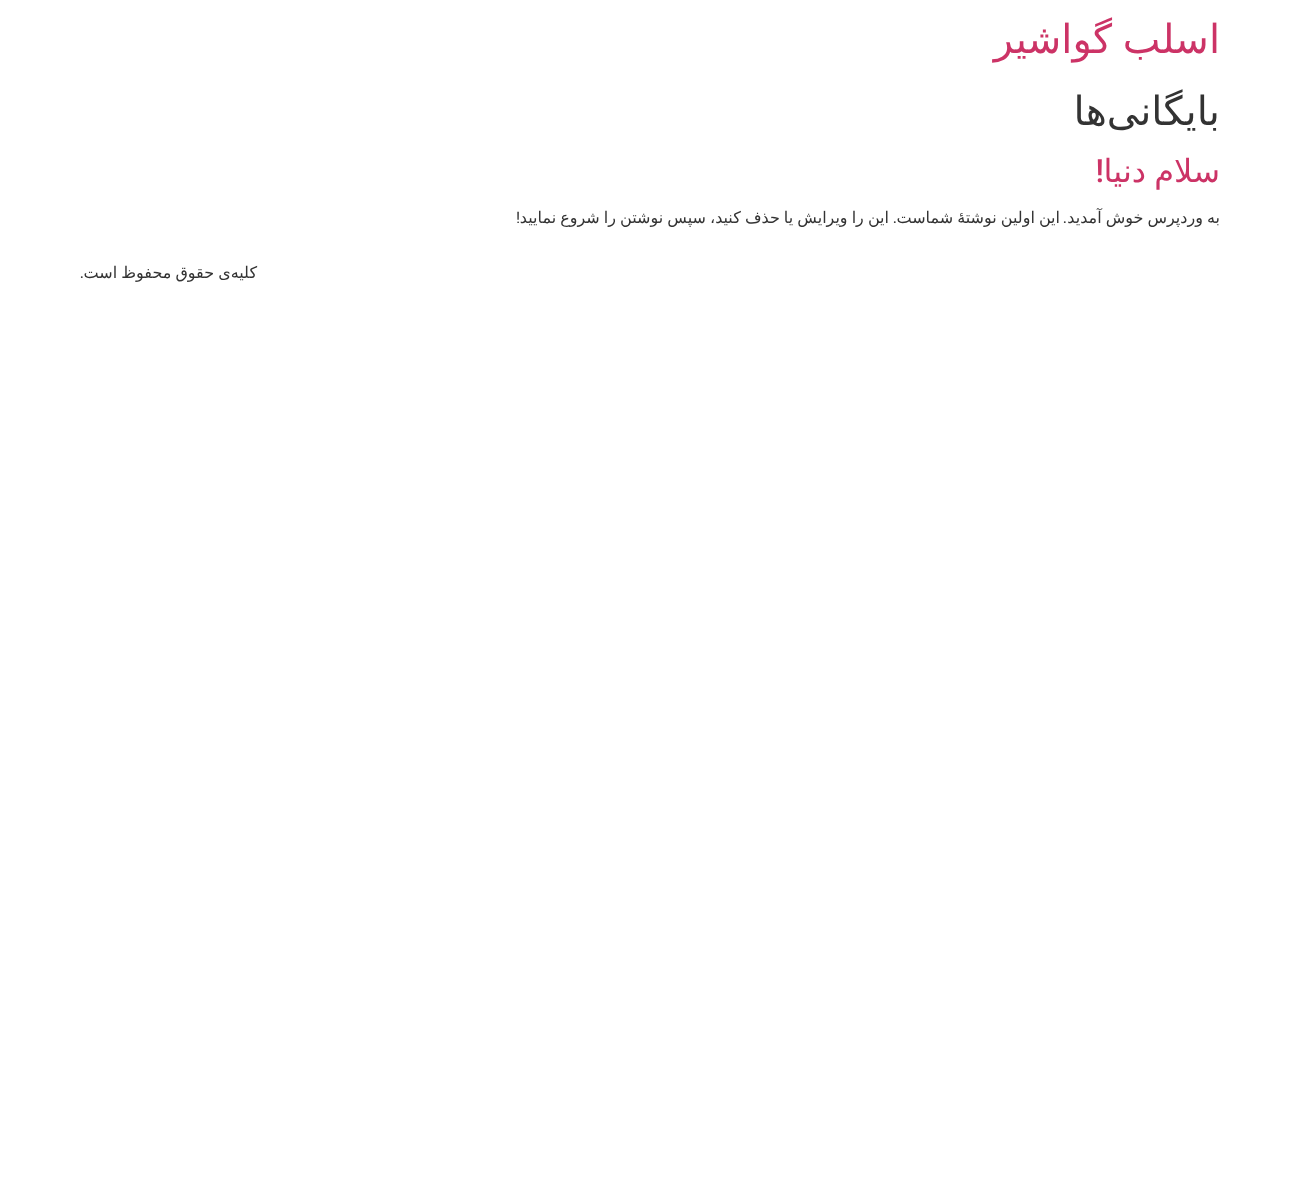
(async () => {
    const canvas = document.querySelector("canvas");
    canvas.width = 1300;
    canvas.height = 1180;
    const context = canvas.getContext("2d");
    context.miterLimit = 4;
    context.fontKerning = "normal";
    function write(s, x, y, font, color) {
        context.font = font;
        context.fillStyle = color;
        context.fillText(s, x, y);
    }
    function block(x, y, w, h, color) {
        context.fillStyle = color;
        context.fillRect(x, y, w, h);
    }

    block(0, 0, 1300, 1180, "rgb(255, 255, 255)");
    context.wordSpacing = "-2px";
    context.direction = "rtl";
    write("اسلب گواشیر", 1220, 53, "40px DejaVu Sans", "rgb(204, 51, 102)");
    context.wordSpacing = "0px";
    write("بایگانی‌ها", 1220, 125, "40px DejaVu Sans", "rgb(51, 51, 51)");
    context.wordSpacing = "-2px";
    write("سلام دنیا", 1220, 182, "32px DejaVu Sans", "rgb(204, 51, 102)");
    context.wordSpacing = "0px";
    write("!", 1104, 182, "500 32px Roboto", "rgb(204, 51, 102)");
    context.wordSpacing = "-1px";
    write("به وردپرس خوش آمدید", 1220, 223, "16px DejaVu Sans", "rgb(51, 51, 51)");
    context.wordSpacing = "0px";
    write(".", 1067, 223, "16px Roboto", "rgb(51, 51, 51)");
    context.wordSpacing = "-1px";
    write("این اولین نوشتهٔ شماست", 1060, 223, "16px DejaVu Sans", "rgb(51, 51, 51)");
    context.wordSpacing = "0px";
    write(".", 897, 223, "16px Roboto", "rgb(51, 51, 51)");
    context.wordSpacing = "-1px";
    write("این را ویرایش یا حذف کنید، سپس نوشتن را شروع نمایید", 889, 223, "16px DejaVu Sans", "rgb(51, 51, 51)");
    context.wordSpacing = "0px";
    write("!", 520, 223, "16px Roboto", "rgb(51, 51, 51)");
    context.wordSpacing = "-1px";
    write("کلیه‌ی حقوق محفوظ است", 257, 278, "16px DejaVu Sans", "rgb(51, 51, 51)");
    context.wordSpacing = "0px";
    write(".", 84, 278, "16px Roboto", "rgb(51, 51, 51)");
})();
